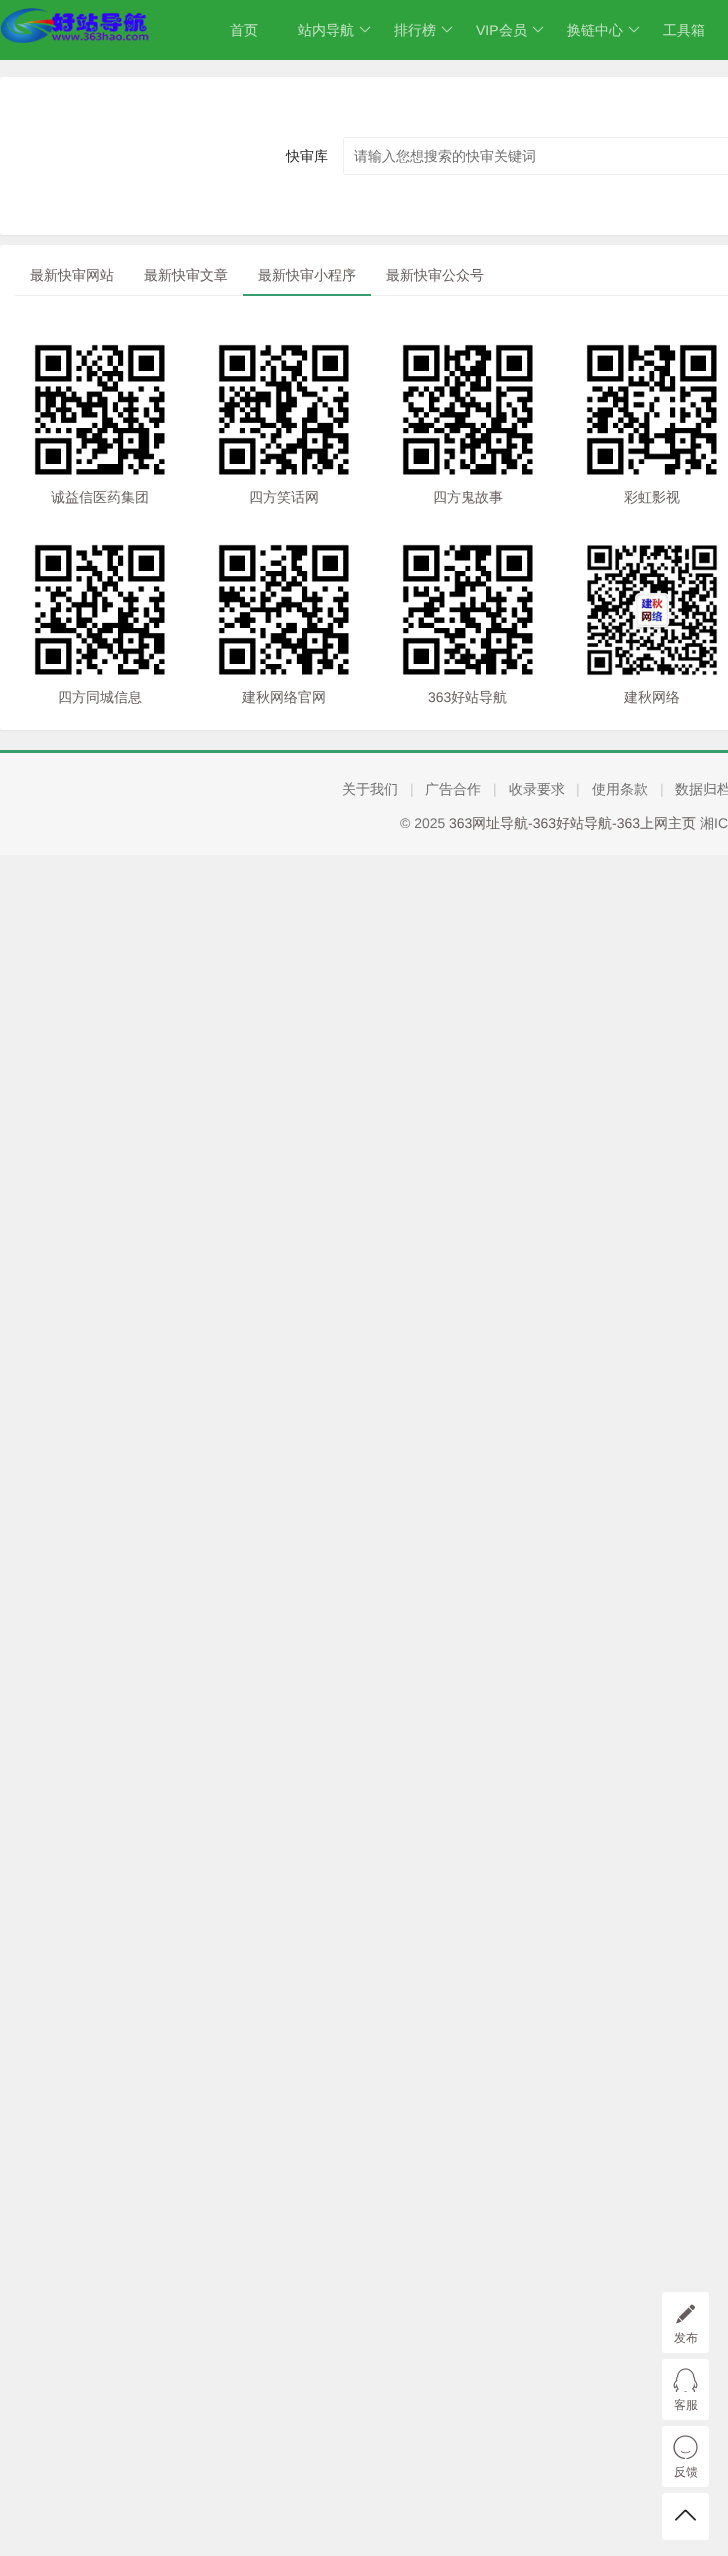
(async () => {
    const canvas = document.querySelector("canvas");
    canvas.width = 728;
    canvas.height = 2556;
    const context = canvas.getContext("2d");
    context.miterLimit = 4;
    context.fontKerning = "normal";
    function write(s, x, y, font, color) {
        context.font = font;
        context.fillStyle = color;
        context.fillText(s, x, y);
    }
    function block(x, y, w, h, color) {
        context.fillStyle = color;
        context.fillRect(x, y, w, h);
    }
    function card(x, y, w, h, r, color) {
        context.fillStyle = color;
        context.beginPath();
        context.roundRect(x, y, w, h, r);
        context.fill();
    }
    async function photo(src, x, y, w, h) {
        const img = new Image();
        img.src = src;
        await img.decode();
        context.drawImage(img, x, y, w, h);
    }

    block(0, 0, 728, 2556, "rgb(241, 240, 240)");
    block(0, 0, 728, 60, "rgb(47, 162, 61)");
    await photo("media/1.png", 0, 8, 149, 35);
    write("首页", 230, 35, "500 14px WenQuanYi Zen Hei", "rgb(193, 227, 197)");
    write("站内导航", 298, 35, "500 14px WenQuanYi Zen Hei", "rgb(193, 227, 197)");
    await photo("media/2.png", 359, 26, 12, 7);
    write("排行榜", 394, 35, "500 14px WenQuanYi Zen Hei", "rgb(193, 227, 197)");
    await photo("media/2.png", 441, 26, 12, 7);
    write("VIP", 476, 35, "14px Liberation Sans", "rgb(193, 227, 197)");
    write("会员", 499, 35, "500 14px WenQuanYi Zen Hei", "rgb(193, 227, 197)");
    await photo("media/2.png", 532, 26, 12, 7);
    write("换链中心", 567, 35, "500 14px WenQuanYi Zen Hei", "rgb(193, 227, 197)");
    await photo("media/2.png", 628, 26, 12, 7);
    write("工具箱", 663, 35, "500 14px WenQuanYi Zen Hei", "rgb(193, 227, 197)");
    context.fillStyle = "rgba(0, 0, 0, 0.05)";
    context.filter = "blur(1px)";
    context.beginPath();
    context.roundRect(0, 78, 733, 158, 2);
    context.fill();
    context.filter = "none";
    card(0, 77, 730, 158, 2, "rgb(255, 255, 255)");
    write("快审库", 286, 161, "500 14px WenQuanYi Zen Hei", "rgb(38, 38, 38)");
    context.beginPath();
    context.roundRect(343.5, 137.5, 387, 37, 1.5);
    context.strokeStyle = "rgb(238, 238, 238)";
    context.stroke();
    write("请输入您想搜索的快审关键词", 354, 161, "500 14px WenQuanYi Zen Hei", "rgb(112, 112, 112)");
    context.fillStyle = "rgba(0, 0, 0, 0.05)";
    context.filter = "blur(1px)";
    context.beginPath();
    context.roundRect(0, 246, 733, 485, 2);
    context.fill();
    context.filter = "none";
    card(0, 245, 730, 485, 2, "rgb(255, 255, 255)");
    block(15, 295, 713, 1, "rgb(238, 238, 238)");
    write("最新快审网站", 30, 280, "500 14px WenQuanYi Zen Hei", "rgb(103, 93, 93)");
    write("最新快审文章", 144, 280, "500 14px WenQuanYi Zen Hei", "rgb(103, 93, 93)");
    write("最新快审小程序", 258, 280, "500 14px WenQuanYi Zen Hei", "rgb(103, 93, 93)");
    block(243, 294, 128, 2, "rgb(57, 158, 111)");
    write("最新快审公众号", 386, 280, "500 14px WenQuanYi Zen Hei", "rgb(103, 93, 93)");
    await photo("media/3.png", 34, 344, 131, 131);
    write("诚益信医药集团", 51, 502, "500 14px WenQuanYi Zen Hei", "rgb(103, 93, 93)");
    await photo("media/4.png", 218, 344, 131, 131);
    write("四方笑话网", 249, 502, "500 14px WenQuanYi Zen Hei", "rgb(103, 93, 93)");
    await photo("media/5.png", 402, 344, 131, 131);
    write("四方鬼故事", 433, 502, "500 14px WenQuanYi Zen Hei", "rgb(103, 93, 93)");
    await photo("media/6.png", 586, 344, 131, 131);
    write("彩虹影视", 624, 502, "500 14px WenQuanYi Zen Hei", "rgb(103, 93, 93)");
    await photo("media/7.png", 34, 544, 131, 131);
    write("四方同城信息", 58, 702, "500 14px WenQuanYi Zen Hei", "rgb(103, 93, 93)");
    await photo("media/8.png", 218, 544, 131, 131);
    write("建秋网络官网", 242, 702, "500 14px WenQuanYi Zen Hei", "rgb(103, 93, 93)");
    await photo("media/9.png", 402, 544, 131, 131);
    write("363", 428, 702, "14px Liberation Sans", "rgb(103, 93, 93)");
    write("好站导航", 451, 702, "500 14px WenQuanYi Zen Hei", "rgb(103, 93, 93)");
    await photo("media/10.png", 587, 545, 131, 131);
    write("建秋网络", 624, 702, "500 14px WenQuanYi Zen Hei", "rgb(103, 93, 93)");
    block(0, 753, 728, 102, "rgb(246, 246, 246)");
    block(0, 750, 728, 3, "rgb(57, 158, 111)");
    write("关于我们", 342, 794, "500 14px WenQuanYi Zen Hei", "rgb(112, 112, 112)");
    write("|", 410, 794, "14px Liberation Sans", "rgb(204, 204, 204)");
    write("广告合作", 425, 794, "500 14px WenQuanYi Zen Hei", "rgb(112, 112, 112)");
    write("|", 493, 794, "14px Liberation Sans", "rgb(204, 204, 204)");
    write("收录要求", 509, 794, "500 14px WenQuanYi Zen Hei", "rgb(112, 112, 112)");
    write("|", 576, 794, "14px Liberation Sans", "rgb(204, 204, 204)");
    write("使用条款", 592, 794, "500 14px WenQuanYi Zen Hei", "rgb(112, 112, 112)");
    write("|", 660, 794, "14px Liberation Sans", "rgb(204, 204, 204)");
    write("数据归档", 675, 794, "500 14px WenQuanYi Zen Hei", "rgb(112, 112, 112)");
    write("© 2025", 400, 828, "14px Liberation Sans", "rgb(112, 112, 112)");
    write("363", 449, 828, "14px Liberation Sans", "rgb(103, 93, 93)");
    write("网址导航", 472, 828, "500 14px WenQuanYi Zen Hei", "rgb(103, 93, 93)");
    write("-363", 528, 828, "14px Liberation Sans", "rgb(103, 93, 93)");
    write("好站导航", 556, 828, "500 14px WenQuanYi Zen Hei", "rgb(103, 93, 93)");
    write("-363", 612, 828, "14px Liberation Sans", "rgb(103, 93, 93)");
    write("上网主页", 640, 828, "500 14px WenQuanYi Zen Hei", "rgb(103, 93, 93)");
    write("湘", 700, 828, "500 14px WenQuanYi Zen Hei", "rgb(112, 112, 112)");
    write("IC", 714, 828, "14px Liberation Sans", "rgb(112, 112, 112)");
    context.fillStyle = "rgb(255, 255, 255)";
    context.beginPath();
    context.roundRect(662.5, 2292.5, 46, 60, 2.5);
    context.fill();
    context.strokeStyle = "rgb(255, 255, 255)";
    context.stroke();
    await photo("media/11.png", 676, 2304, 19, 20);
    write("发布", 674, 2342, "500 12px WenQuanYi Zen Hei", "rgb(103, 93, 93)");
    context.fillStyle = "rgb(255, 255, 255)";
    context.beginPath();
    context.roundRect(662.5, 2359.5, 46, 60, 2.5);
    context.fill();
    context.stroke();
    await photo("media/12.png", 673, 2368, 25, 24);
    write("客服", 674, 2409, "500 12px WenQuanYi Zen Hei", "rgb(103, 93, 93)");
    context.fillStyle = "rgb(255, 255, 255)";
    context.beginPath();
    context.roundRect(662.5, 2426.5, 46, 60, 2.5);
    context.fill();
    context.stroke();
    await photo("media/13.png", 673, 2435, 25, 24);
    write("反馈", 674, 2476, "500 12px WenQuanYi Zen Hei", "rgb(103, 93, 93)");
    context.fillStyle = "rgb(255, 255, 255)";
    context.beginPath();
    context.roundRect(662.5, 2493.5, 46, 46, 2.5);
    context.fill();
    context.stroke();
    await photo("media/14.png", 675, 2509, 21, 12);
})();
